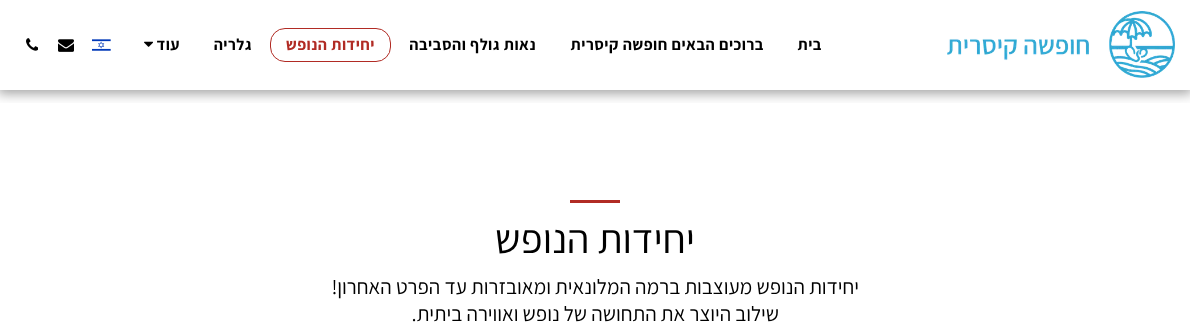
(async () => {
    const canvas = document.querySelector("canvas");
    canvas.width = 1190;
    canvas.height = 336;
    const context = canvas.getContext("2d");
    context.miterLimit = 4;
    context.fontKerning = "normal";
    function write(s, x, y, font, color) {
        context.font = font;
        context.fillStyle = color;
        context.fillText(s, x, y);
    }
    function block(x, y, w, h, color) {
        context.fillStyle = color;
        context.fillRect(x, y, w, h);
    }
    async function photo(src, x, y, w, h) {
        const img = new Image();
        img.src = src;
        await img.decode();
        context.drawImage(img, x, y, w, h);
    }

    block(0, 0, 1190, 336, "rgb(255, 255, 255)");
    context.save();
    context.beginPath();
    context.rect(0, 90, 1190, 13);
    context.clip();
    context.fillStyle = "rgba(0, 0, 0, 0.35)";
    context.filter = "blur(6px)";
    context.beginPath();
    context.rect(-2, 0, 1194, 94);
    context.fill();
    context.filter = "none";
    context.restore();
    await photo("media/1.png", 947, 11, 228, 67);
    context.letterSpacing = "0.5px";
    context.direction = "rtl";
    write("בית", 822, 50, "bold 16px Assistant", "rgb(0, 0, 0)");
    write("ברוכים הבאים חופשה קיסרית", 764, 50, "bold 16px Assistant", "rgb(0, 0, 0)");
    write("נאות גולף והסביבה", 536, 50, "bold 16px Assistant", "rgb(0, 0, 0)");
    context.beginPath();
    context.roundRect(270.5, 28.5, 120, 33, 14.5);
    context.strokeStyle = "rgb(177, 43, 36)";
    context.stroke();
    write("יחידות הנופש", 375, 50, "bold 16px Assistant", "rgb(177, 43, 36)");
    write("גלריה", 252, 50, "bold 16px Assistant", "rgb(0, 0, 0)");
    write("עוד", 180, 50, "bold 16px Assistant", "rgb(0, 0, 0)");
    await photo("media/2.png", 144, 41, 9, 6);
    await photo("media/3.png", 92, 39, 19, 12);
    await photo("media/4.png", 58, 39, 16, 13);
    await photo("media/5.png", 26, 38, 12, 13);
    block(570, 200, 50, 3, "rgb(177, 43, 36)");
    context.letterSpacing = "0px";
    write("יחידות הנופש", 695, 253, "41px Assistant", "rgb(0, 0, 0)");
    write("יחידות הנופש מעוצבות ברמה המלונאית ומאובזרות עד הפרט האחרון!", 859, 294, "21px Assistant", "rgb(0, 0, 0)");
    write("שילוב היוצר את התחושה של נופש ואווירה ביתית.", 779, 321, "21px Assistant", "rgb(0, 0, 0)");
})();
